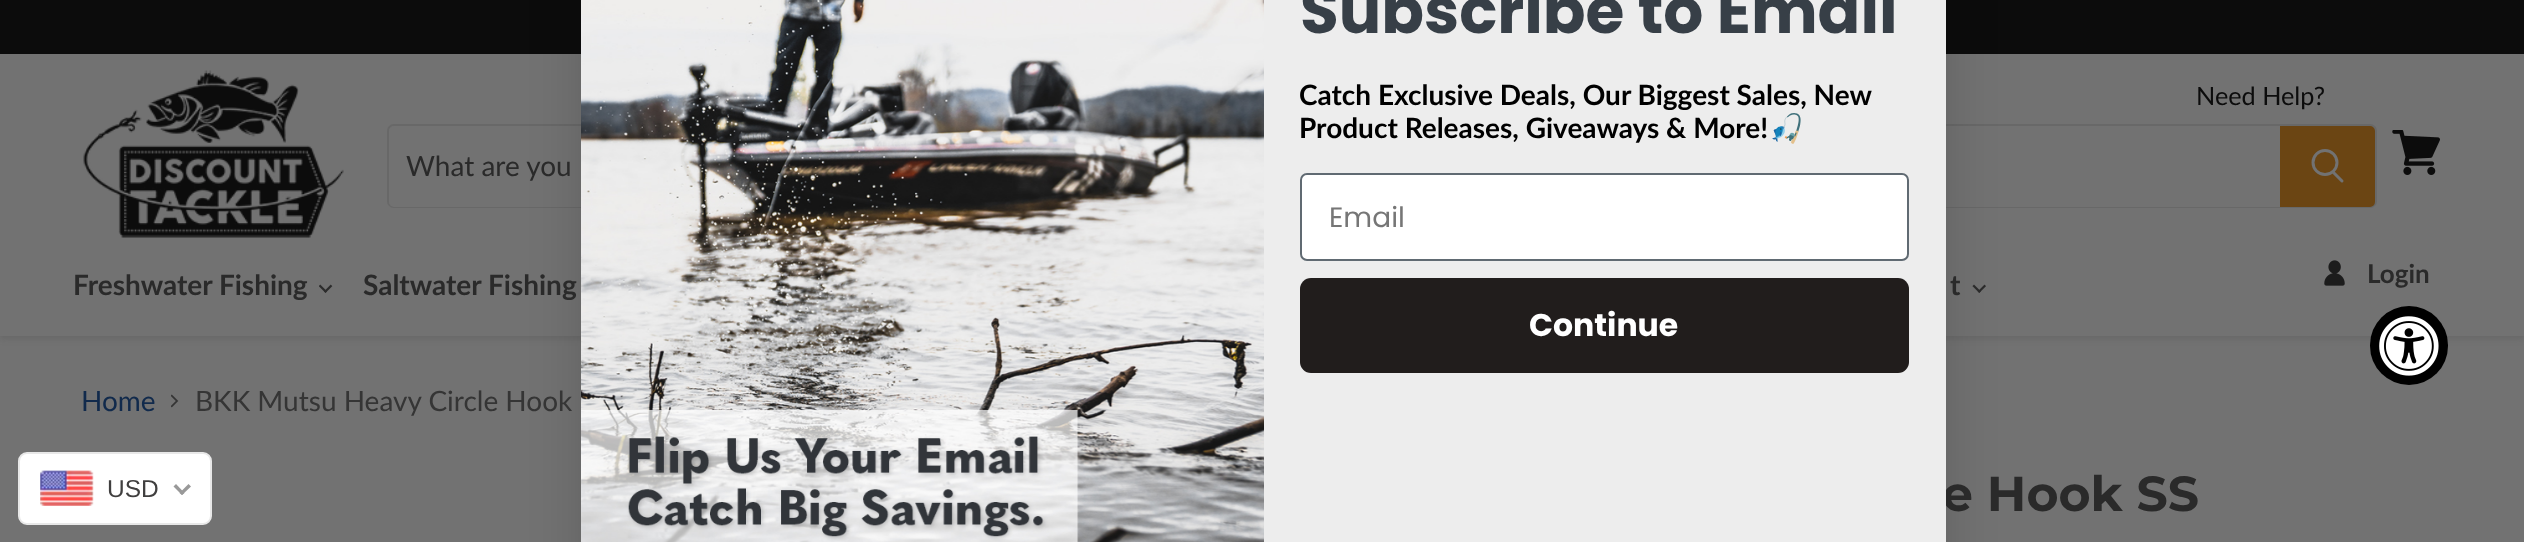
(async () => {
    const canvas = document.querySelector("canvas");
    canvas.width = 2524;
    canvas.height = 542;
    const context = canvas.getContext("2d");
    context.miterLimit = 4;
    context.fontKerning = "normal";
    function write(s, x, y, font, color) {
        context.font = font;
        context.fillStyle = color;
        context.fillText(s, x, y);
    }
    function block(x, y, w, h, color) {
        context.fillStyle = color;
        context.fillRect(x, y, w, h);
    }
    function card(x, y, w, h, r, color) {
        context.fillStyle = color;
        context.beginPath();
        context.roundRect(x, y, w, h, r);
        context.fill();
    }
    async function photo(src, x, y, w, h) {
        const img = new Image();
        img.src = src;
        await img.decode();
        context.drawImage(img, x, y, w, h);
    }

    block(0, 0, 2524, 542, "rgb(114, 114, 114)");
    context.fillStyle = "rgba(63, 63, 63, 0.25)";
    context.filter = "blur(3.5px)";
    context.beginPath();
    context.rect(0, 56, 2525, 282);
    context.fill();
    context.filter = "none";
    block(0, 0, 2524, 54, "rgb(12, 12, 12)");
    block(0, 54, 2524, 282, "rgb(114, 114, 114)");
    context.beginPath();
    context.roundRect(388, 125, 1988, 82, 6);
    context.strokeStyle = "rgba(63, 63, 63, 0.2)";
    context.lineWidth = 2;
    context.stroke();
    context.beginPath();
    context.roundRect(389, 126, 1891, 81, [5, 0, 0, 5]);
    context.fill();
    await photo("media/5.png", 1972, 284, 14, 9);
    context.fillStyle = "rgba(0, 0, 0, 0.15)";
    context.filter = "blur(26px)";
    context.beginPath();
    context.roundRect(581, -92, 1365, 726, 14);
    context.fill();
    context.filter = "none";
    write("e Hook SS", 1942, 511, "bold 49px Montserrat", "rgb(42, 42, 42)");
    block(1264, 0, 682, 542, "rgb(237, 237, 237)");
    await photo("media/1.png", 581, 0, 683, 542);
    write("Subscribe to Email", 1300, 33, "bold 63px Poppins", "rgb(55, 63, 71)");
    write("Catch Exclusive Deals, Our Biggest Sales, New", 1299, 105, "bold 28px Lato", "rgb(0, 0, 0)");
    write("Product Releases, Giveaways & More!", 1299, 138, "bold 28px Lato", "rgb(0, 0, 0)");
    write("🎣", 1769, 138, "bold 28px Noto Color Emoji", "rgb(0, 0, 0)");
    context.fillStyle = "rgb(255, 255, 255)";
    context.beginPath();
    context.roundRect(1301, 174, 607, 86, 6);
    context.fill();
    context.strokeStyle = "rgb(96, 106, 114)";
    context.stroke();
    write("Email", 1329, 227, "28px Poppins", "rgb(118, 118, 118)");
    card(1300, 278, 609, 95, 11, "rgb(33, 29, 28)");
    write("Continue", 1529, 336, "bold 31.5px Poppins", "rgb(255, 255, 255)");
    write("Need Help?", 2196, 105, "25.25px Lato", "rgb(12, 12, 12)");
    await photo("media/2.png", 2392, 130, 48, 45);
    await photo("media/3.png", 83, 70, 261, 168);
    write("What are you", 406, 176, "28px Lato", "rgb(42, 42, 42)");
    context.fillStyle = "rgb(107, 69, 19)";
    context.beginPath();
    context.roundRect(2281, 127, 93, 79, [0, 4, 4, 0]);
    context.fill();
    context.strokeStyle = "rgb(107, 69, 19)";
    context.stroke();
    context.beginPath();
    context.moveTo(2342, 181);
    context.lineTo(2333.5, 172.5);
    context.strokeStyle = "rgb(114, 114, 114)";
    context.lineWidth = 3;
    context.lineCap = "round";
    context.stroke();
    context.beginPath();
    context.arc(2325, 162.5, 12, 0, Math.PI * 2);
    context.stroke();
    write("Freshwater Fishing", 73, 295, "bold 28px Lato", "rgb(42, 42, 42)");
    await photo("media/4.png", 319, 284, 14, 9);
    write("Saltwater Fishing", 363, 295, "bold 28px Lato", "rgb(42, 42, 42)");
    write("t", 1950, 295, "bold 28px Lato", "rgb(42, 42, 42)");
    await photo("media/6.png", 2324, 260, 21, 26);
    write("Login", 2367, 283, "bold 26px Lato", "rgb(42, 42, 42)");
    card(2370, 306, 78, 79, 39, "rgb(0, 0, 0)");
    await photo("media/7.png", 2379, 316, 60, 60);
    write("Home", 81, 411, "28px Lato", "rgb(17, 42, 76)");
    await photo("media/8.png", 171, 394, 8, 14);
    write("BKK Mutsu Heavy Circle Hook", 195, 411, "28px Lato", "rgb(53, 53, 53)");
    context.fillStyle = "rgb(255, 255, 255)";
    context.beginPath();
    context.roundRect(19, 453, 192, 71, 8);
    context.fill();
    context.strokeStyle = "rgb(232, 232, 232)";
    context.lineWidth = 2;
    context.stroke();
    await photo("media/9.png", 40, 470, 54, 36);
    write("USD", 107, 497, "24.5px Liberation Sans", "rgb(64, 63, 63)");
    context.fillStyle = "rgb(153, 153, 153)";
    context.beginPath();
    context.moveTo(188.5, 484);
    context.lineTo(191, 486.5);
    context.lineTo(182, 495);
    context.lineTo(179.5, 493);
    context.closePath();
    context.fill();
    context.beginPath();
    context.moveTo(176, 484);
    context.lineTo(184.5, 493);
    context.lineTo(182, 495);
    context.lineTo(173.5, 486.5);
    context.closePath();
    context.fill();
})();
